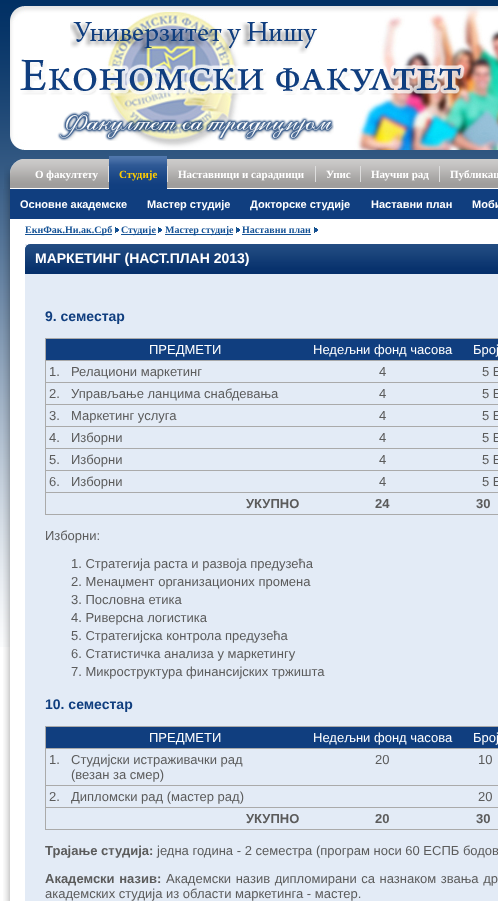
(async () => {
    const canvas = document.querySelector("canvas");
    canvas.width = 498;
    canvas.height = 901;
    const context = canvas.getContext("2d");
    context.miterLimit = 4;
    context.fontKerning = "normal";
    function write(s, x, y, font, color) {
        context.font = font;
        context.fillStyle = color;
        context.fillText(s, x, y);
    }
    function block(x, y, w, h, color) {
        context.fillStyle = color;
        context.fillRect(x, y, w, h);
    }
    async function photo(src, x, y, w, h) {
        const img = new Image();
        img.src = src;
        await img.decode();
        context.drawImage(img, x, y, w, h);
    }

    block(0, 0, 498, 901, "rgb(255, 255, 255)");
    await photo("media/1.png", 0, 0, 498, 647);
    await photo("media/2.png", 10, 6, 488, 144);
    await photo("media/3.png", 70, 22, 247, 32);
    await photo("media/4.png", 20, 59, 445, 36);
    await photo("media/5.png", 57, 110, 277, 31);
    await photo("media/6.png", 4, 159, 21, 30);
    await photo("media/7.png", 25, 159, 473, 30);
    write("О факултету", 35, 178, "bold 11px Liberation Serif", "rgb(255, 255, 255)");
    block(108, 166, 1, 16, "rgb(221, 221, 221)");
    await photo("media/8.png", 109, 156, 58, 33);
    write("Студије", 119, 178, "bold 11px Liberation Serif", "rgb(255, 204, 0)");
    block(167, 166, 1, 16, "rgb(221, 221, 221)");
    write("Наставници и сарадници", 178, 178, "bold 11px Liberation Serif", "rgb(255, 255, 255)");
    block(315, 166, 1, 16, "rgb(221, 221, 221)");
    write("Упис", 326, 178, "bold 11px Liberation Serif", "rgb(255, 255, 255)");
    block(360, 166, 1, 16, "rgb(221, 221, 221)");
    write("Научни рад", 371, 178, "bold 11px Liberation Serif", "rgb(255, 255, 255)");
    block(439, 166, 1, 16, "rgb(221, 221, 221)");
    write("Публикац", 450, 178, "bold 11px Liberation Serif", "rgb(255, 255, 255)");
    await photo("media/9.png", 3, 189, 7, 712);
    block(10, 219, 488, 428, "rgb(255, 255, 255)");
    block(10, 189, 488, 30, "rgb(16, 62, 127)");
    write("Основне академске", 20, 208, "bold 11px Liberation Sans", "rgb(255, 255, 255)");
    write("Мастер студије", 147, 208, "bold 11px Liberation Sans", "rgb(255, 255, 255)");
    write("Докторске студије", 250, 208, "bold 11px Liberation Sans", "rgb(255, 255, 255)");
    write("Наставни план", 371, 208, "bold 11px Liberation Sans", "rgb(255, 255, 255)");
    write("Моби", 472, 208, "bold 11px Liberation Sans", "rgb(255, 255, 255)");
    block(25, 234, 87, 1, "rgb(22, 83, 150)");
    write("ЕкнФак.Ни.ак.Срб", 25, 233, "bold 10px Liberation Serif", "rgb(22, 83, 150)");
    await photo("media/10.png", 115, 227, 4, 6);
    block(121, 234, 35, 1, "rgb(22, 83, 150)");
    write("Студије", 121, 233, "bold 10px Liberation Serif", "rgb(22, 83, 150)");
    await photo("media/10.png", 158, 227, 4, 6);
    block(165, 234, 68, 1, "rgb(22, 83, 150)");
    write("Мастер студије", 165, 233, "bold 10px Liberation Serif", "rgb(22, 83, 150)");
    await photo("media/10.png", 236, 227, 4, 6);
    write("Наставни план", 242, 233, "bold 10px Liberation Serif", "rgb(22, 83, 150)");
    block(242, 234, 69, 1, "rgb(22, 83, 150)");
    await photo("media/10.png", 314, 227, 4, 6);
    block(25, 274, 473, 627, "rgb(227, 235, 246)");
    await photo("media/11.png", 25, 244, 473, 30);
    write("МАРКЕТИНГ (НАСТ.ПЛАН 2013)", 35, 263, "bold 14px Liberation Sans", "rgb(255, 255, 255)");
    write("9. семестар", 45, 321, "bold 14px Liberation Sans", "rgb(16, 62, 127)");
    block(45, 338, 453, 1, "rgb(170, 170, 170)");
    block(45, 514, 453, 1, "rgb(170, 170, 170)");
    block(45, 338, 1, 177, "rgb(170, 170, 170)");
    block(45, 360, 453, 1, "rgb(170, 170, 170)");
    block(46, 339, 452, 21, "rgb(16, 62, 127)");
    write("ПРЕДМЕТИ", 149, 354, "13px Liberation Sans", "rgb(255, 255, 255)");
    write("Недељни фонд часова", 313, 354, "13px Liberation Sans", "rgb(255, 255, 255)");
    write("Број", 473, 354, "13px Liberation Sans", "rgb(255, 255, 255)");
    block(45, 382, 453, 1, "rgb(170, 170, 170)");
    write("1.", 49, 376, "13px Liberation Sans", "rgb(91, 91, 91)");
    write("Релациони маркетинг", 71, 376, "13px Liberation Sans", "rgb(91, 91, 91)");
    write("4", 379, 376, "13px Liberation Sans", "rgb(91, 91, 91)");
    write("5 Е", 482, 376, "13px Liberation Sans", "rgb(91, 91, 91)");
    block(45, 404, 453, 1, "rgb(170, 170, 170)");
    write("2.", 49, 398, "13px Liberation Sans", "rgb(91, 91, 91)");
    write("Управљање ланцима снабдевања", 71, 398, "13px Liberation Sans", "rgb(91, 91, 91)");
    write("4", 379, 398, "13px Liberation Sans", "rgb(91, 91, 91)");
    write("5 Е", 482, 398, "13px Liberation Sans", "rgb(91, 91, 91)");
    block(45, 426, 453, 1, "rgb(170, 170, 170)");
    write("3.", 49, 420, "13px Liberation Sans", "rgb(91, 91, 91)");
    write("Маркетинг услуга", 71, 420, "13px Liberation Sans", "rgb(91, 91, 91)");
    write("4", 379, 420, "13px Liberation Sans", "rgb(91, 91, 91)");
    write("5 Е", 482, 420, "13px Liberation Sans", "rgb(91, 91, 91)");
    block(45, 448, 453, 1, "rgb(170, 170, 170)");
    write("4.", 49, 442, "13px Liberation Sans", "rgb(91, 91, 91)");
    write("Изборни", 71, 442, "13px Liberation Sans", "rgb(91, 91, 91)");
    write("4", 379, 442, "13px Liberation Sans", "rgb(91, 91, 91)");
    write("5 Е", 482, 442, "13px Liberation Sans", "rgb(91, 91, 91)");
    block(45, 470, 453, 1, "rgb(170, 170, 170)");
    write("5.", 49, 464, "13px Liberation Sans", "rgb(91, 91, 91)");
    write("Изборни", 71, 464, "13px Liberation Sans", "rgb(91, 91, 91)");
    write("4", 379, 464, "13px Liberation Sans", "rgb(91, 91, 91)");
    write("5 Е", 482, 464, "13px Liberation Sans", "rgb(91, 91, 91)");
    block(45, 492, 453, 1, "rgb(170, 170, 170)");
    write("6.", 49, 486, "13px Liberation Sans", "rgb(91, 91, 91)");
    write("Изборни", 71, 486, "13px Liberation Sans", "rgb(91, 91, 91)");
    write("4", 379, 486, "13px Liberation Sans", "rgb(91, 91, 91)");
    write("5 Е", 482, 486, "13px Liberation Sans", "rgb(91, 91, 91)");
    write("УКУПНО", 246, 508, "bold 13px Liberation Sans", "rgb(91, 91, 91)");
    write("24", 375, 508, "bold 13px Liberation Sans", "rgb(91, 91, 91)");
    write("30", 476, 508, "bold 13px Liberation Sans", "rgb(91, 91, 91)");
    write("Изборни:", 45, 540, "13px Liberation Sans", "rgb(91, 91, 91)");
    write("1. Стратегија раста и развоја предузећа", 71, 568, "13px Liberation Sans", "rgb(91, 91, 91)");
    write("2. Менаџмент организационих промена", 71, 586, "13px Liberation Sans", "rgb(91, 91, 91)");
    write("3. Пословна етика", 71, 604, "13px Liberation Sans", "rgb(91, 91, 91)");
    write("4. Риверсна логистика", 71, 622, "13px Liberation Sans", "rgb(91, 91, 91)");
    write("5. Стратегијска контрола предузећа", 71, 640, "13px Liberation Sans", "rgb(91, 91, 91)");
    write("6. Статистичка анализа у маркетингу", 71, 658, "13px Liberation Sans", "rgb(91, 91, 91)");
    write("7. Микроструктура финансијских тржишта", 71, 676, "13px Liberation Sans", "rgb(91, 91, 91)");
    write("10. семестар", 45, 709, "bold 14px Liberation Sans", "rgb(16, 62, 127)");
    block(45, 726, 453, 1, "rgb(170, 170, 170)");
    block(45, 829, 453, 1, "rgb(170, 170, 170)");
    block(45, 726, 1, 104, "rgb(170, 170, 170)");
    block(45, 748, 453, 1, "rgb(170, 170, 170)");
    block(46, 727, 452, 21, "rgb(16, 62, 127)");
    write("ПРЕДМЕТИ", 149, 742, "13px Liberation Sans", "rgb(255, 255, 255)");
    write("Недељни фонд часова", 313, 742, "13px Liberation Sans", "rgb(255, 255, 255)");
    write("Број", 473, 742, "13px Liberation Sans", "rgb(255, 255, 255)");
    block(45, 785, 453, 1, "rgb(170, 170, 170)");
    write("1.", 49, 764, "13px Liberation Sans", "rgb(91, 91, 91)");
    write("Студијски истраживачки рад", 71, 764, "13px Liberation Sans", "rgb(91, 91, 91)");
    write("(везан за смер)", 71, 779, "13px Liberation Sans", "rgb(91, 91, 91)");
    write("20", 375, 764, "13px Liberation Sans", "rgb(91, 91, 91)");
    write("10", 478, 764, "13px Liberation Sans", "rgb(91, 91, 91)");
    block(45, 807, 453, 1, "rgb(170, 170, 170)");
    write("2.", 49, 801, "13px Liberation Sans", "rgb(91, 91, 91)");
    write("Дипломски рад (мастер рад)", 71, 801, "13px Liberation Sans", "rgb(91, 91, 91)");
    write("20", 478, 801, "13px Liberation Sans", "rgb(91, 91, 91)");
    write("УКУПНО", 246, 823, "bold 13px Liberation Sans", "rgb(91, 91, 91)");
    write("20", 375, 823, "bold 13px Liberation Sans", "rgb(91, 91, 91)");
    write("30", 476, 823, "bold 13px Liberation Sans", "rgb(91, 91, 91)");
    write("Трајање студија:", 45, 855, "bold 13px Liberation Sans", "rgb(91, 91, 91)");
    write("једна година - 2 семестра (програм носи 60 ЕСПБ бодов", 157, 855, "13px Liberation Sans", "rgb(91, 91, 91)");
    context.wordSpacing = "1px";
    write("Академски назив:", 45, 883, "bold 13px Liberation Sans", "rgb(91, 91, 91)");
    write("Академски назив дипломирани са назнаком звања др", 166, 883, "13px Liberation Sans", "rgb(91, 91, 91)");
    context.wordSpacing = "0px";
    write("академских студија из области маркетинга - мастер.", 45, 898, "13px Liberation Sans", "rgb(91, 91, 91)");
})();
